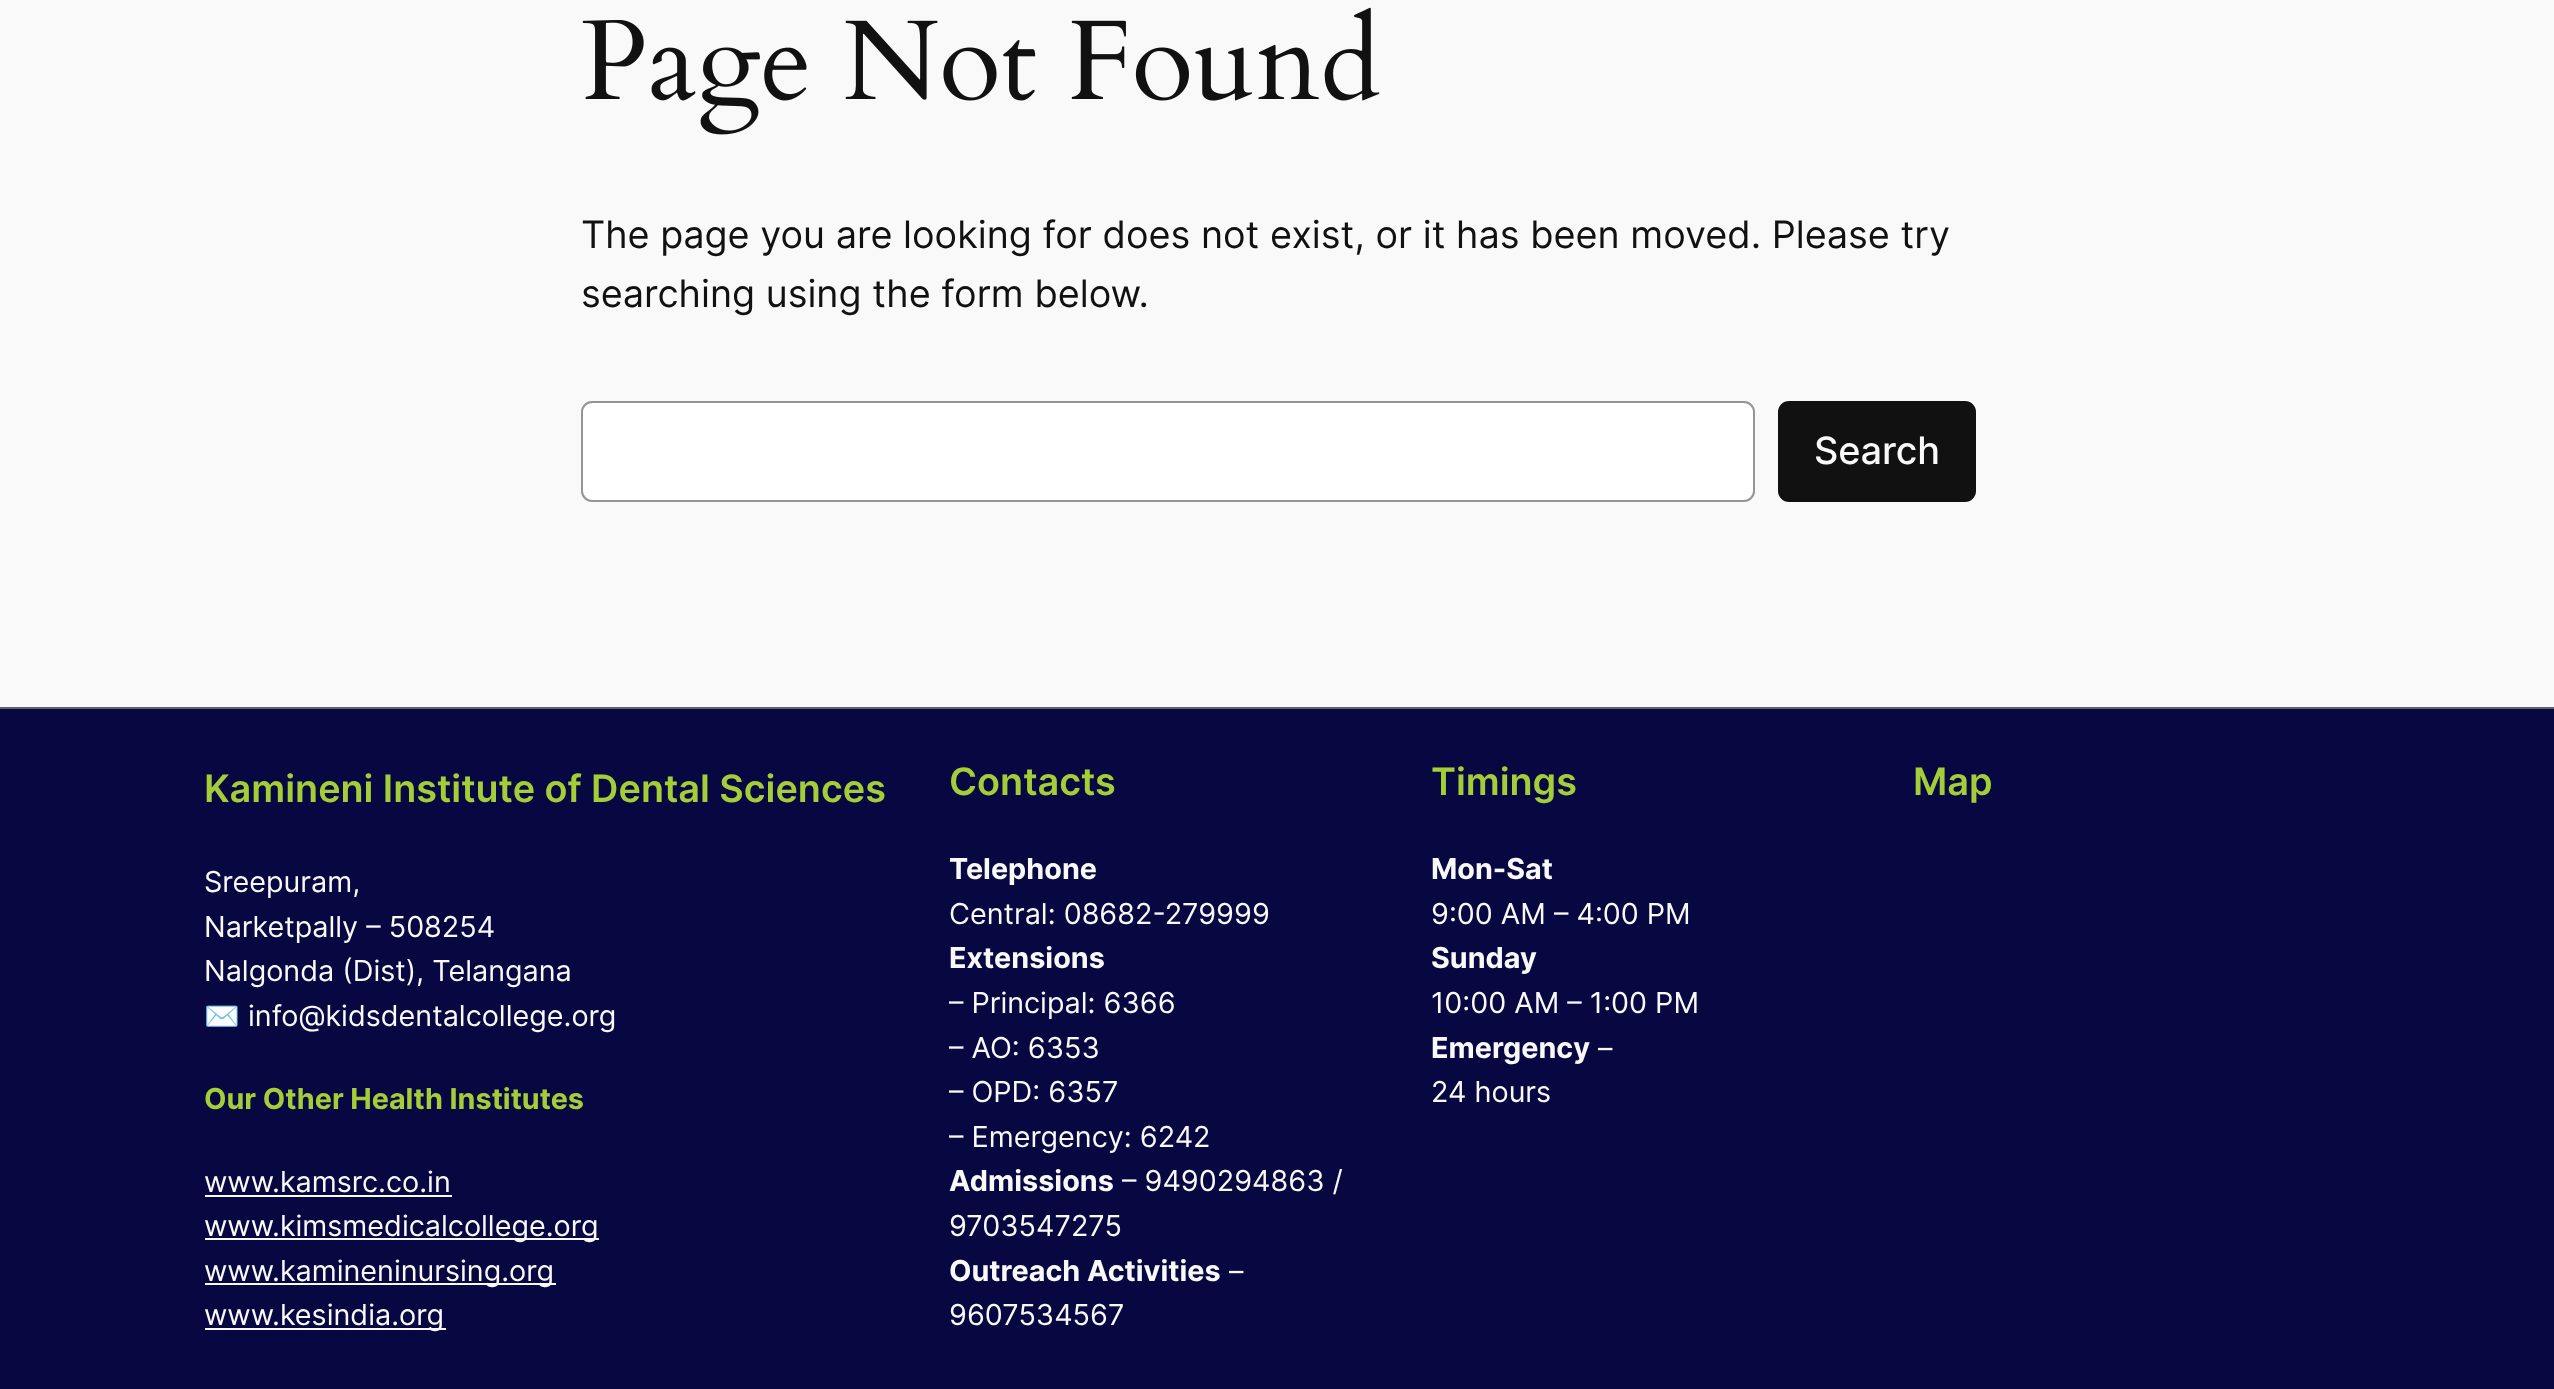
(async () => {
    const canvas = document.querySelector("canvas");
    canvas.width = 2554;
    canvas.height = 1389;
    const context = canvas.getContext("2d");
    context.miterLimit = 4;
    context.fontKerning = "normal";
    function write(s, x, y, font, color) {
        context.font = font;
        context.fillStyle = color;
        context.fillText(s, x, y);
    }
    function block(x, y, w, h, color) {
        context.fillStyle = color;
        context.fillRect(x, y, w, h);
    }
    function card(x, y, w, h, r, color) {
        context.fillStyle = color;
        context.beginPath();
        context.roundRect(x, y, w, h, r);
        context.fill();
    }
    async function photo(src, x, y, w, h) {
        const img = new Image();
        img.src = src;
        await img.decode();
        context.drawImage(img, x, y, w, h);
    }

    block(0, 0, 2554, 1389, "rgb(249, 249, 249)");
    await photo("media/1.png", 582, 7, 798, 128);
    write("The page you are looking for does not exist, or it has been moved. Please try", 581, 248, "37.8px Inter", "rgb(17, 17, 17)");
    write("searching using the form below.", 581, 307, "37.8px Inter", "rgb(17, 17, 17)");
    context.fillStyle = "rgb(255, 255, 255)";
    context.beginPath();
    context.roundRect(582, 402, 1172, 99, 10);
    context.fill();
    context.strokeStyle = "rgb(148, 148, 148)";
    context.lineWidth = 2;
    context.stroke();
    card(1778, 401, 198, 101, 11, "rgb(17, 17, 17)");
    write("Search", 1814, 464, "500 37.8px Inter", "rgb(249, 249, 249)");
    block(0, 709, 2554, 680, "rgb(7, 8, 65)");
    block(0, 707, 2554, 2, "rgb(99, 99, 99)");
    write("Kamineni Institute of Dental Sciences", 204, 802, "600 37.8px Inter", "rgb(165, 205, 56)");
    write("Sreepuram,", 204, 892, "28.75px Inter", "rgb(249, 249, 249)");
    write("Narketpally – 508254", 204, 937, "28.75px Inter", "rgb(249, 249, 249)");
    write("Nalgonda (Dist), Telangana", 204, 981, "28.75px Inter", "rgb(249, 249, 249)");
    write("✉️", 204, 1026, "28.75px Noto Color Emoji", "rgb(249, 249, 249)");
    write("info@kidsdentalcollege.org", 248, 1026, "28.75px Inter", "rgb(249, 249, 249)");
    write("Our Other Health Institutes", 204, 1109, "bold 28.75px Inter", "rgb(165, 205, 56)");
    write("www.kamsrc.co.in", 204, 1192, "28.75px Inter", "rgb(249, 249, 249)");
    block(205, 1195, 247, 2, "rgb(249, 249, 249)");
    block(205, 1238, 394, 2, "rgb(249, 249, 249)");
    write("www.kimsmedicalcollege.org", 204, 1236, "28.75px Inter", "rgb(249, 249, 249)");
    block(205, 1283, 351, 2, "rgb(249, 249, 249)");
    write("www.kamineninursing.org", 204, 1281, "28.75px Inter", "rgb(249, 249, 249)");
    block(205, 1328, 241, 2, "rgb(249, 249, 249)");
    write("www.kesindia.org", 204, 1325, "28.75px Inter", "rgb(249, 249, 249)");
    write("Contacts", 949, 795, "600 37.8px Inter", "rgb(165, 205, 56)");
    write("Telephone", 949, 879, "bold 28.75px Inter", "rgb(249, 249, 249)");
    write("Central: 08682-279999", 949, 924, "28.75px Inter", "rgb(249, 249, 249)");
    write("Extensions", 949, 968, "bold 28.75px Inter", "rgb(249, 249, 249)");
    write("– Principal: 6366", 949, 1013, "28.75px Inter", "rgb(249, 249, 249)");
    write("– AO: 6353", 949, 1058, "28.75px Inter", "rgb(249, 249, 249)");
    write("– OPD: 6357", 949, 1102, "28.75px Inter", "rgb(249, 249, 249)");
    write("– Emergency: 6242", 949, 1147, "28.75px Inter", "rgb(249, 249, 249)");
    write("Admissions", 949, 1191, "bold 28.75px Inter", "rgb(249, 249, 249)");
    write("– 9490294863 /", 1122, 1191, "28.75px Inter", "rgb(249, 249, 249)");
    write("9703547275", 949, 1236, "28.75px Inter", "rgb(249, 249, 249)");
    write("Outreach Activities", 949, 1281, "bold 28.75px Inter", "rgb(249, 249, 249)");
    write("–", 1229, 1281, "28.75px Inter", "rgb(249, 249, 249)");
    write("9607534567", 949, 1325, "28.75px Inter", "rgb(249, 249, 249)");
    write("Timings", 1431, 795, "600 37.8px Inter", "rgb(165, 205, 56)");
    write("Mon-Sat", 1431, 879, "bold 28.75px Inter", "rgb(249, 249, 249)");
    write("9:00 AM – 4:00 PM", 1431, 924, "28.75px Inter", "rgb(249, 249, 249)");
    write("Sunday", 1431, 968, "bold 28.75px Inter", "rgb(249, 249, 249)");
    write("10:00 AM – 1:00 PM", 1431, 1013, "28.75px Inter", "rgb(249, 249, 249)");
    write("Emergency", 1431, 1058, "bold 28.75px Inter", "rgb(249, 249, 249)");
    write("–", 1598, 1058, "28.75px Inter", "rgb(249, 249, 249)");
    write("24 hours", 1431, 1102, "28.75px Inter", "rgb(249, 249, 249)");
    write("Map", 1913, 795, "600 37.8px Inter", "rgb(165, 205, 56)");
})();
